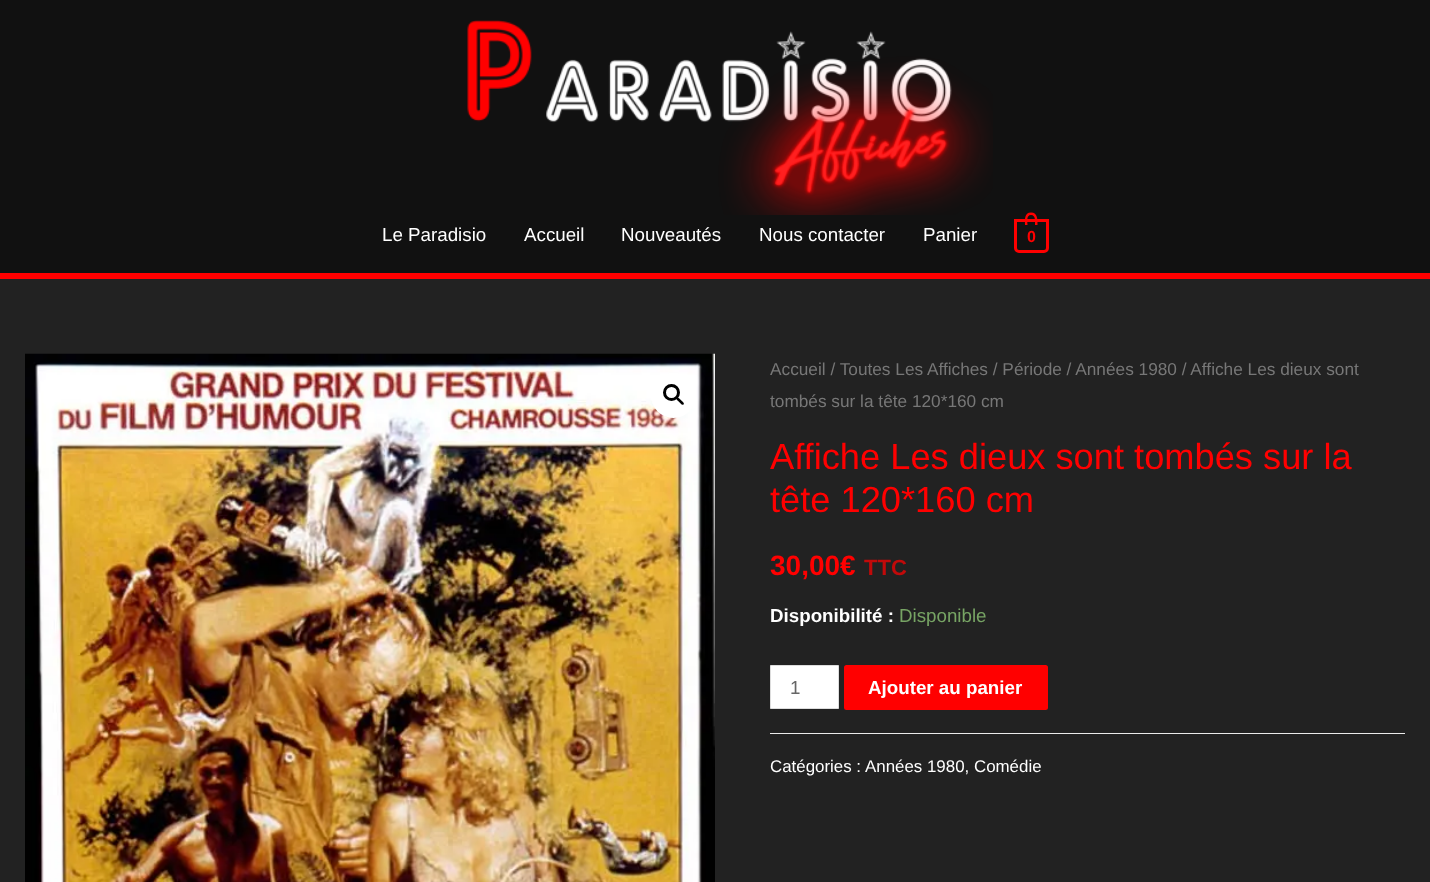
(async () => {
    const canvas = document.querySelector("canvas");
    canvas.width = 1430;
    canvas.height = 882;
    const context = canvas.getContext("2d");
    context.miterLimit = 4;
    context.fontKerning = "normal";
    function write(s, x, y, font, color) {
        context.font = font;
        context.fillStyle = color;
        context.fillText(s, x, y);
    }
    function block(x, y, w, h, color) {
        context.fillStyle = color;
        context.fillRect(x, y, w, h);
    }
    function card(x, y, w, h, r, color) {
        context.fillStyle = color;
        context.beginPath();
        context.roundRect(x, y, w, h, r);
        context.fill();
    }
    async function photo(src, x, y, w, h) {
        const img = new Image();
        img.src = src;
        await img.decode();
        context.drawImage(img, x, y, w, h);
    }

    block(0, 0, 1430, 882, "rgb(34, 34, 34)");
    block(0, 0, 1430, 273, "rgb(17, 17, 17)");
    block(0, 273, 1430, 6, "rgb(255, 0, 0)");
    await photo("media/1.png", 467, 20, 526, 195);
    write("Le Paradisio", 382, 241, "18.75px Liberation Sans", "rgb(255, 255, 255)");
    write("Accueil", 524, 241, "18.75px Liberation Sans", "rgb(255, 255, 255)");
    write("Nouveautés", 621, 241, "18.75px Liberation Sans", "rgb(255, 255, 255)");
    write("Nous contacter", 759, 241, "18.75px Liberation Sans", "rgb(255, 255, 255)");
    write("Panier", 923, 241, "18.75px Liberation Sans", "rgb(255, 255, 255)");
    context.beginPath();
    context.roundRect(1015.5, 220.5, 32, 31, [0, 0, 3.5, 3.5]);
    context.strokeStyle = "rgb(255, 0, 0)";
    context.lineWidth = 3;
    context.stroke();
    context.fillStyle = "rgb(255, 0, 0)";
    context.beginPath();
    context.moveTo(1031, 212.5);
    context.bezierCurveTo(1038, 212.5, 1037.5, 220, 1037.5, 225);
    context.lineTo(1025, 225);
    context.bezierCurveTo(1025, 220, 1024, 212.5, 1031, 212.5);
    context.closePath();
    context.moveTo(1031, 215);
    context.bezierCurveTo(1036, 215, 1035, 222, 1035, 225);
    context.lineTo(1027.5, 225);
    context.bezierCurveTo(1027.5, 222, 1026, 215, 1031, 215);
    context.closePath();
    context.fill("evenodd");
    write("0", 1027, 242, "bold 16px Liberation Sans", "rgb(255, 0, 0)");
    await photo("media/2.png", 25, 353, 690, 529);
    context.fillStyle = "rgb(255, 255, 255)";
    context.beginPath();
    context.arc(673.5, 395.5, 22.5, 0, Math.PI * 2);
    context.fill();
    context.beginPath();
    context.arc(671.5, 392.5, 7, 0, Math.PI * 2);
    context.strokeStyle = "rgb(0, 0, 0)";
    context.stroke();
    context.fillStyle = "rgb(0, 0, 0)";
    context.beginPath();
    context.moveTo(676.5, 397.5);
    context.bezierCurveTo(678, 396, 680, 399.5, 681, 400);
    context.bezierCurveTo(681.5, 401, 685, 403, 683.5, 404.5);
    context.bezierCurveTo(682, 406, 680, 402.5, 679, 402);
    context.bezierCurveTo(678.5, 401, 675, 399, 676.5, 397.5);
    context.closePath();
    context.fill();
    write("Accueil / Toutes Les Affiches / Période / Années 1980 / Affiche Les dieux sont", 770, 375, "17.25px Liberation Sans", "rgb(119, 119, 119)");
    write("tombés sur la tête 120*160 cm", 770, 407, "17.25px Liberation Sans", "rgb(119, 119, 119)");
    write("Affiche Les dieux sont tombés sur la", 770, 469, "36.25px Liberation Sans", "rgb(255, 0, 0)");
    write("tête 120*160 cm", 770, 512, "36.25px Liberation Sans", "rgb(255, 0, 0)");
    write("30,00€", 770, 575, "bold 28px Liberation Sans", "rgb(255, 0, 0)");
    write("TTC", 864, 575, "bold 22px Liberation Sans", "rgb(193, 10, 10)");
    write("Disponibilité :", 770, 622, "bold 18.75px Liberation Sans", "rgb(255, 255, 255)");
    write("Disponible", 899, 622, "18.75px Liberation Sans", "rgb(119, 164, 100)");
    context.fillStyle = "rgb(255, 255, 255)";
    context.beginPath();
    context.rect(770.5, 665.5, 68, 43);
    context.fill();
    context.strokeStyle = "rgb(221, 221, 221)";
    context.lineWidth = 1;
    context.stroke();
    write("1", 790, 694, "18.75px Liberation Sans", "rgb(102, 102, 102)");
    card(844, 665, 204, 45, 2.5, "rgb(255, 0, 0)");
    write("Ajouter au panier", 868, 694, "bold 18.75px Liberation Sans", "rgb(255, 255, 255)");
    block(770, 733, 635, 1, "rgb(235, 235, 235)");
    write("Catégories :", 770, 772, "16.9px Liberation Sans", "rgb(255, 255, 255)");
    write("Années 1980, Comédie", 865, 772, "16.9px Liberation Sans", "rgb(255, 255, 255)");
})();
